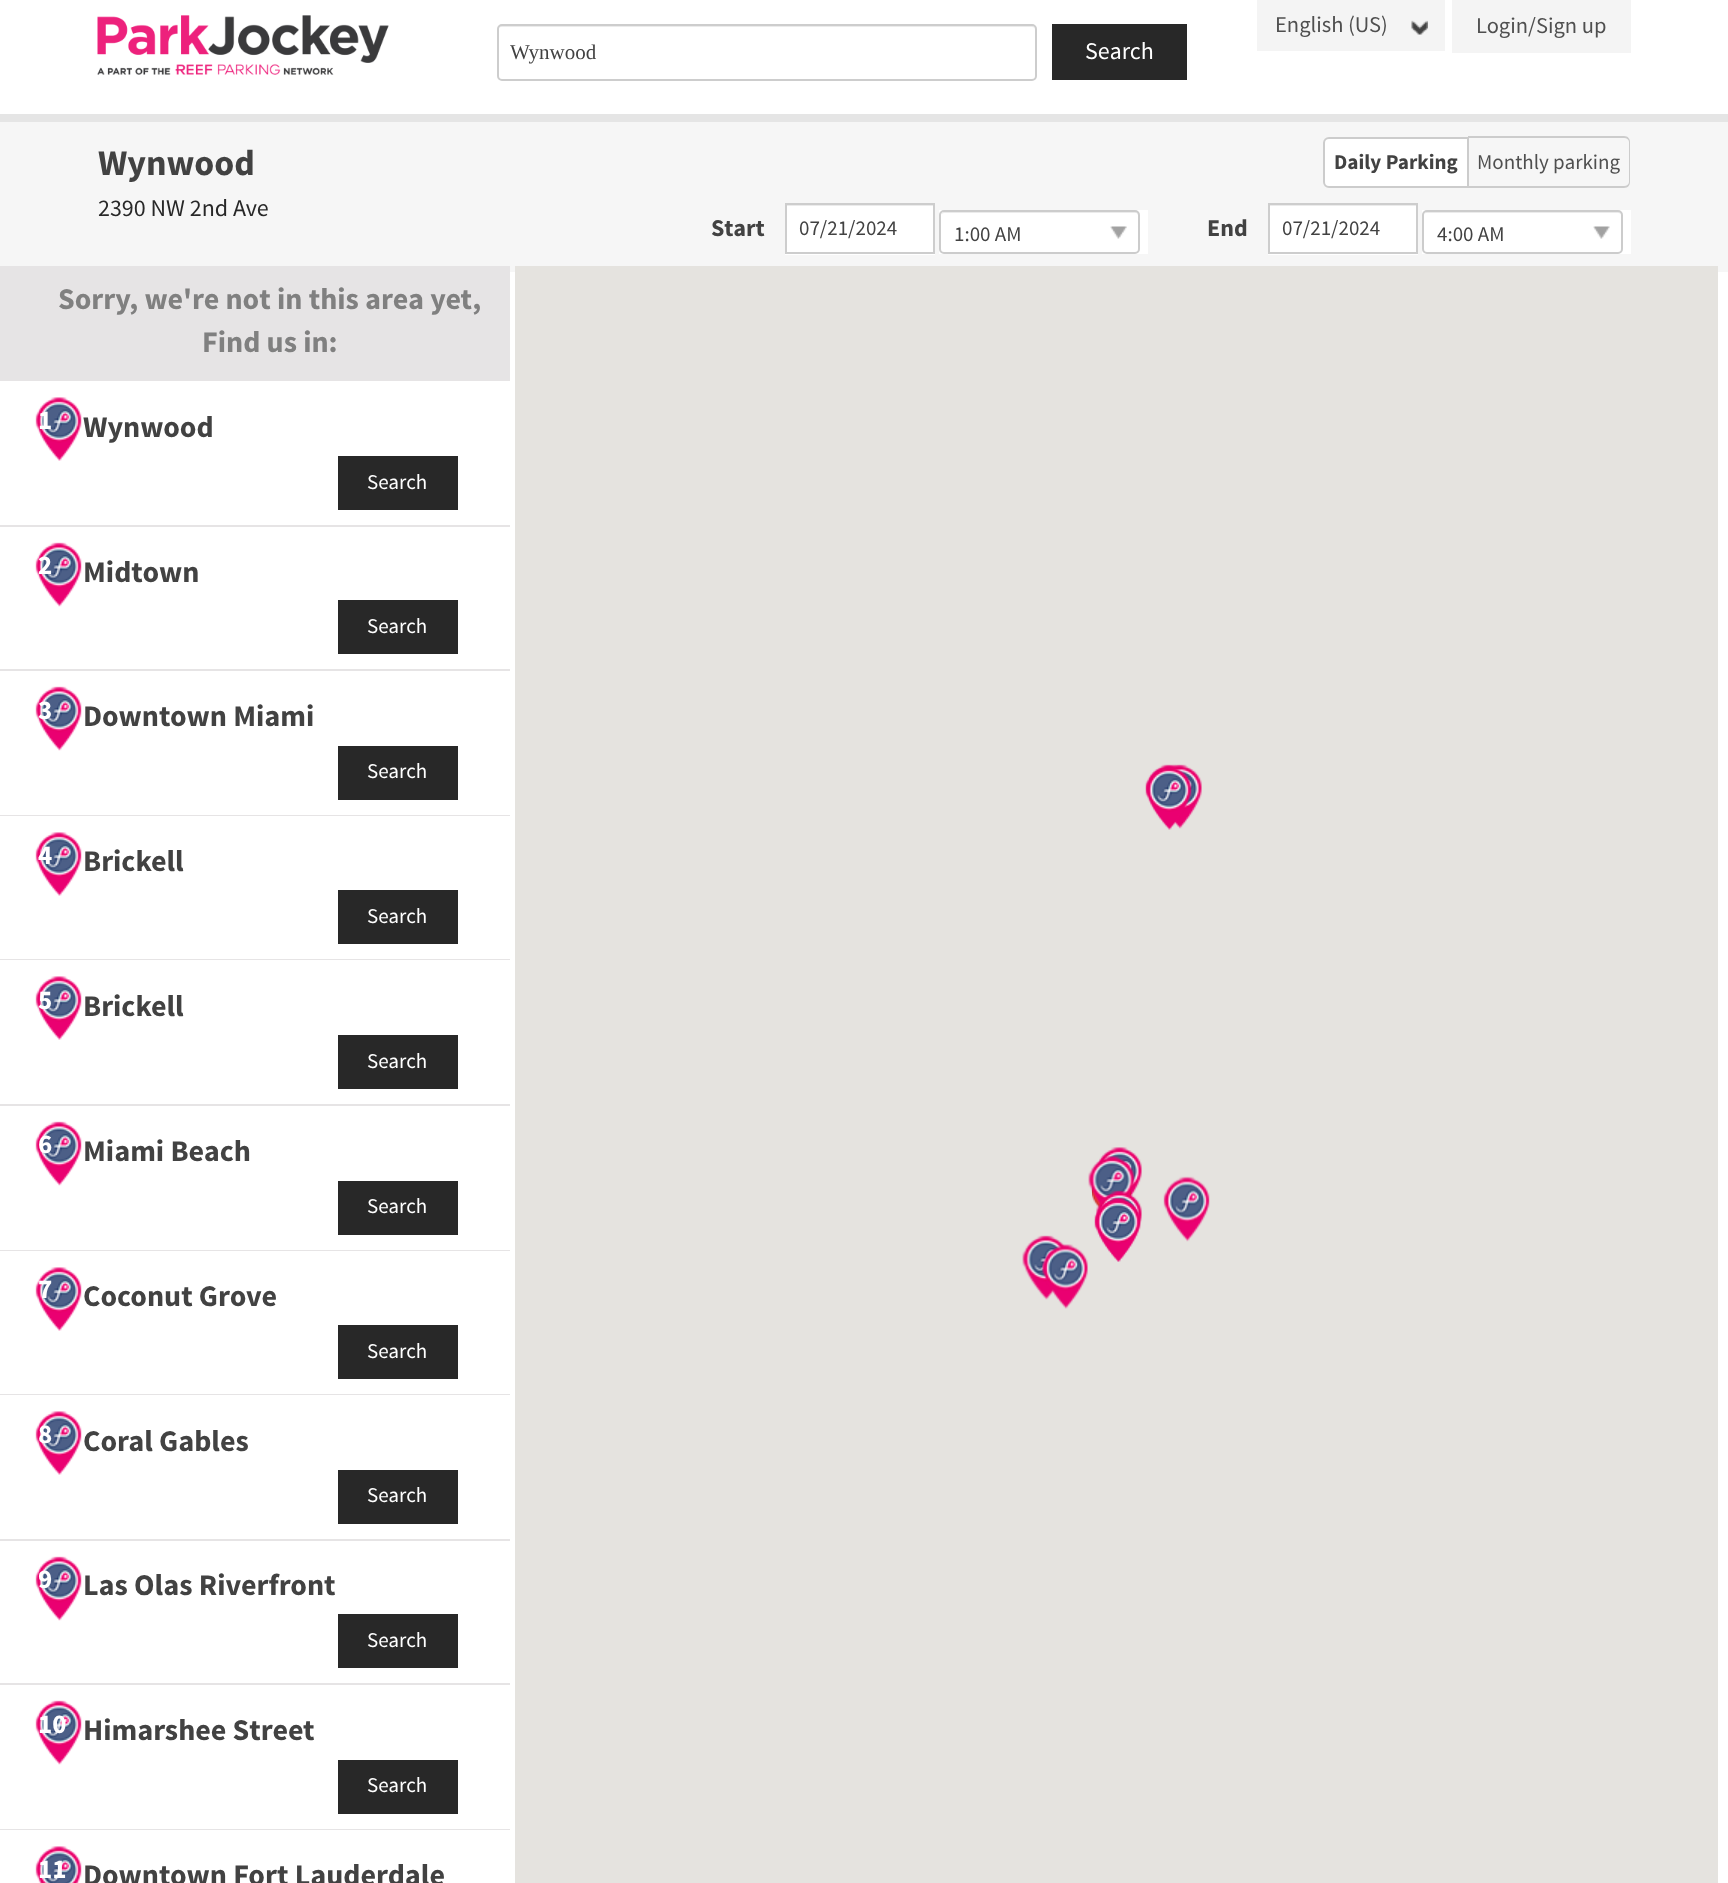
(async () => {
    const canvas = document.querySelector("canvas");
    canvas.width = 1728;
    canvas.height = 1883;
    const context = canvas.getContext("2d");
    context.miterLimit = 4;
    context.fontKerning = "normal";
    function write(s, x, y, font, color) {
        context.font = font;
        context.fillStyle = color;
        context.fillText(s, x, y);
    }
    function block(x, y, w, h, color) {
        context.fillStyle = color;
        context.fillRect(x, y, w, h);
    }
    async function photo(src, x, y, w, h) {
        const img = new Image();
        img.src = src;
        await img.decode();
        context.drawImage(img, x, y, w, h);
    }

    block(0, 0, 1728, 1883, "rgb(255, 255, 255)");
    block(0, 114, 1728, 8, "rgb(229, 229, 229)");
    await photo("media/1.png", 97, 15, 292, 60);
    block(1257, 0, 188, 51, "rgb(244, 244, 244)");
    write("English (US)", 1275, 32, "22.5px Source Sans Pro", "rgb(79, 79, 79)");
    await photo("media/2.png", 1411, 20, 17, 15);
    block(1452, 0, 179, 53, "rgb(244, 244, 244)");
    write("Login/Sign up", 1476, 33, "22.5px Source Sans Pro", "rgb(79, 79, 79)");
    context.fillStyle = "rgb(235, 235, 235)";
    context.beginPath();
    context.moveTo(501, 27);
    context.lineTo(1032, 27);
    context.bezierCurveTo(1034, 27, 1035, 28, 1035, 30);
    context.lineTo(1035, 29);
    context.bezierCurveTo(1035, 27, 1034, 26, 1032, 26);
    context.lineTo(501, 26);
    context.bezierCurveTo(499, 26, 498, 27, 498, 29);
    context.lineTo(498, 30);
    context.bezierCurveTo(498, 28, 499, 27, 501, 27);
    context.closePath();
    context.fill();
    context.beginPath();
    context.roundRect(498, 25, 538, 55, 4);
    context.strokeStyle = "rgb(205, 205, 205)";
    context.lineWidth = 2;
    context.stroke();
    write("Wynwood", 510, 59, "21px Liberation Serif", "rgb(66, 66, 66)");
    block(1052, 24, 135, 56, "rgb(40, 40, 40)");
    write("Search", 1085, 59, "24px Source Sans Pro", "rgb(255, 255, 255)");
    block(0, 122, 1728, 150, "rgb(246, 246, 246)");
    write("Wynwood", 98, 175, "bold 36px Source Sans Pro", "rgb(66, 66, 66)");
    write("2390 NW 2nd Ave", 98, 216, "24px Source Sans Pro", "rgb(40, 40, 40)");
    context.fillStyle = "rgb(204, 204, 204)";
    context.beginPath();
    context.moveTo(1468, 136);
    context.lineTo(1624, 136);
    context.bezierCurveTo(1628, 136, 1630, 139, 1630, 142);
    context.lineTo(1630, 182);
    context.bezierCurveTo(1630, 185, 1628, 188, 1624, 188);
    context.lineTo(1468, 188);
    context.closePath();
    context.moveTo(1468, 138);
    context.lineTo(1624, 138);
    context.bezierCurveTo(1627, 138, 1629, 140, 1629, 142);
    context.lineTo(1629, 182);
    context.bezierCurveTo(1629, 184, 1627, 186, 1624, 186);
    context.lineTo(1468, 186);
    context.closePath();
    context.fill("evenodd");
    context.fillStyle = "rgb(255, 255, 255)";
    context.beginPath();
    context.roundRect(1324, 138, 144, 49, [5, 0, 0, 5]);
    context.fill();
    context.strokeStyle = "rgb(204, 204, 204)";
    context.stroke();
    write("Daily Parking", 1334, 169, "bold 21px Source Sans Pro", "rgb(66, 66, 66)");
    write("Monthly parking", 1477, 169, "21px Source Sans Pro", "rgb(79, 79, 79)");
    write("Start", 711, 236, "bold 24px Source Sans Pro", "rgb(66, 66, 66)");
    context.fillStyle = "rgb(255, 255, 255)";
    context.beginPath();
    context.moveTo(785, 254);
    context.lineTo(785, 255);
    context.lineTo(935, 255);
    context.lineTo(935, 204);
    context.lineTo(934, 204);
    context.lineTo(934, 254);
    context.closePath();
    context.fill();
    block(787, 206, 146, 46, "rgb(255, 255, 255)");
    block(786, 205, 147, 1, "rgb(235, 235, 235)");
    context.strokeStyle = "rgb(205, 205, 205)";
    context.strokeRect(786, 204, 148, 49);
    write("07/21/2024", 799, 235, "21px Source Sans Pro", "rgb(66, 66, 66)");
    block(939, 210, 209, 44, "rgb(255, 255, 255)");
    await photo("media/3.png", 1110, 226, 17, 13);
    context.fillStyle = "rgb(235, 235, 235)";
    context.beginPath();
    context.moveTo(944, 213);
    context.lineTo(1136, 213);
    context.bezierCurveTo(1140, 213, 1138, 226, 1138, 227);
    context.lineTo(1138, 251);
    context.bezierCurveTo(1139, 251, 1139, 250, 1139, 249);
    context.lineTo(1139, 215);
    context.bezierCurveTo(1139, 213, 1138, 212, 1136, 212);
    context.lineTo(944, 212);
    context.bezierCurveTo(943, 212, 942, 213, 941, 214);
    context.closePath();
    context.fill();
    context.beginPath();
    context.roundRect(940, 211, 199, 42, 4);
    context.strokeStyle = "rgb(204, 204, 204)";
    context.stroke();
    write("1:00 AM", 954, 241, "21px Source Sans Pro", "rgb(66, 66, 66)");
    write("End", 1207, 236, "bold 24px Source Sans Pro", "rgb(66, 66, 66)");
    context.fillStyle = "rgb(255, 255, 255)";
    context.beginPath();
    context.moveTo(1268, 254);
    context.lineTo(1268, 255);
    context.lineTo(1418, 255);
    context.lineTo(1418, 204);
    context.lineTo(1418, 254);
    context.closePath();
    context.fill();
    block(1270, 206, 146, 46, "rgb(255, 255, 255)");
    block(1269, 205, 147, 1, "rgb(235, 235, 235)");
    context.strokeStyle = "rgb(205, 205, 205)";
    context.strokeRect(1269, 204, 148, 49);
    write("07/21/2024", 1282, 235, "21px Source Sans Pro", "rgb(66, 66, 66)");
    block(1422, 210, 209, 44, "rgb(255, 255, 255)");
    await photo("media/4.png", 1593, 226, 17, 13);
    context.fillStyle = "rgb(235, 235, 235)";
    context.beginPath();
    context.moveTo(1426, 213);
    context.lineTo(1618, 213);
    context.bezierCurveTo(1620, 213, 1622, 214, 1622, 216);
    context.bezierCurveTo(1622, 214, 1621, 212, 1619, 212);
    context.lineTo(1427, 212);
    context.bezierCurveTo(1425, 212, 1424, 214, 1424, 216);
    context.bezierCurveTo(1424, 214, 1425, 213, 1426, 213);
    context.closePath();
    context.fill();
    context.beginPath();
    context.roundRect(1423, 211, 199, 42, 4);
    context.strokeStyle = "rgb(204, 204, 204)";
    context.stroke();
    write("4:00 AM", 1437, 241, "21px Source Sans Pro", "rgb(66, 66, 66)");
    block(0, 266, 510, 115, "rgb(230, 228, 229)");
    write("Sorry, we're not in this area yet,", 58, 309, "bold 30px Source Sans Pro", "rgb(128, 128, 128)");
    write("Find us in:", 202, 352, "bold 30px Source Sans Pro", "rgb(128, 128, 128)");
    block(0, 525, 510, 2, "rgb(230, 228, 229)");
    await photo("media/5.png", 35, 397, 47, 64);
    write("1", 38, 429, "bold 27px Source Sans Pro", "rgb(255, 255, 255)");
    write("Wynwood", 83, 437, "bold 30px Source Sans Pro", "rgb(66, 66, 66)");
    block(338, 456, 120, 54, "rgb(40, 40, 40)");
    write("Search", 367, 489, "21px Source Sans Pro", "rgb(255, 255, 255)");
    block(0, 669, 510, 2, "rgb(230, 228, 229)");
    await photo("media/6.png", 35, 542, 47, 65);
    write("2", 38, 574, "bold 27px Source Sans Pro", "rgb(255, 255, 255)");
    write("Midtown", 83, 582, "bold 30px Source Sans Pro", "rgb(66, 66, 66)");
    block(338, 600, 120, 54, "rgb(40, 40, 40)");
    write("Search", 367, 633, "21px Source Sans Pro", "rgb(255, 255, 255)");
    block(0, 815, 510, 1, "rgb(230, 228, 229)");
    await photo("media/6.png", 35, 686, 47, 65);
    write("3", 38, 719, "bold 27px Source Sans Pro", "rgb(255, 255, 255)");
    write("Downtown Miami", 83, 726, "bold 30px Source Sans Pro", "rgb(66, 66, 66)");
    block(338, 746, 120, 54, "rgb(40, 40, 40)");
    write("Search", 367, 778, "21px Source Sans Pro", "rgb(255, 255, 255)");
    block(0, 959, 510, 1, "rgb(230, 228, 229)");
    await photo("media/5.png", 35, 832, 47, 64);
    write("4", 38, 864, "bold 27px Source Sans Pro", "rgb(255, 255, 255)");
    write("Brickell", 83, 871, "bold 30px Source Sans Pro", "rgb(66, 66, 66)");
    block(338, 890, 120, 54, "rgb(40, 40, 40)");
    write("Search", 367, 923, "21px Source Sans Pro", "rgb(255, 255, 255)");
    block(0, 1104, 510, 2, "rgb(230, 228, 229)");
    await photo("media/5.png", 35, 976, 47, 64);
    write("5", 38, 1009, "bold 27px Source Sans Pro", "rgb(255, 255, 255)");
    write("Brickell", 83, 1016, "bold 30px Source Sans Pro", "rgb(66, 66, 66)");
    block(338, 1035, 120, 54, "rgb(40, 40, 40)");
    write("Search", 367, 1068, "21px Source Sans Pro", "rgb(255, 255, 255)");
    block(0, 1250, 510, 1, "rgb(230, 228, 229)");
    await photo("media/6.png", 35, 1121, 47, 65);
    write("6", 38, 1153, "bold 27px Source Sans Pro", "rgb(255, 255, 255)");
    write("Miami Beach", 83, 1161, "bold 30px Source Sans Pro", "rgb(66, 66, 66)");
    block(338, 1181, 120, 54, "rgb(40, 40, 40)");
    write("Search", 367, 1213, "21px Source Sans Pro", "rgb(255, 255, 255)");
    block(0, 1394, 510, 1, "rgb(230, 228, 229)");
    await photo("media/5.png", 35, 1267, 47, 64);
    write("7", 38, 1298, "bold 27px Source Sans Pro", "rgb(255, 255, 255)");
    write("Coconut Grove", 83, 1306, "bold 30px Source Sans Pro", "rgb(66, 66, 66)");
    block(338, 1325, 120, 54, "rgb(40, 40, 40)");
    write("Search", 367, 1358, "21px Source Sans Pro", "rgb(255, 255, 255)");
    block(0, 1539, 510, 2, "rgb(230, 228, 229)");
    await photo("media/5.png", 35, 1411, 47, 64);
    write("8", 38, 1443, "bold 27px Source Sans Pro", "rgb(255, 255, 255)");
    write("Coral Gables", 83, 1451, "bold 30px Source Sans Pro", "rgb(66, 66, 66)");
    block(338, 1470, 120, 54, "rgb(40, 40, 40)");
    write("Search", 367, 1502, "21px Source Sans Pro", "rgb(255, 255, 255)");
    block(0, 1683, 510, 2, "rgb(230, 228, 229)");
    await photo("media/6.png", 35, 1556, 47, 65);
    write("9", 38, 1588, "bold 27px Source Sans Pro", "rgb(255, 255, 255)");
    write("Las Olas Riverfront", 83, 1595, "bold 30px Source Sans Pro", "rgb(66, 66, 66)");
    block(338, 1614, 120, 54, "rgb(40, 40, 40)");
    write("Search", 367, 1647, "21px Source Sans Pro", "rgb(255, 255, 255)");
    block(0, 1829, 510, 1, "rgb(230, 228, 229)");
    await photo("media/6.png", 35, 1700, 47, 65);
    write("10", 38, 1733, "bold 27px Source Sans Pro", "rgb(255, 255, 255)");
    write("Himarshee Street", 83, 1740, "bold 30px Source Sans Pro", "rgb(66, 66, 66)");
    block(338, 1760, 120, 54, "rgb(40, 40, 40)");
    write("Search", 367, 1792, "21px Source Sans Pro", "rgb(255, 255, 255)");
    await photo("media/7.png", 35, 1846, 47, 37);
    write("11", 38, 1878, "bold 27px Source Sans Pro", "rgb(255, 255, 255)");
    write("Downtown Fort Lauderdale", 83, 1885, "bold 30px Source Sans Pro", "rgb(66, 66, 66)");
    block(515, 266, 1203, 1617, "rgb(229, 227, 223)");
    await photo("media/8.png", 1145, 764, 33, 65);
    await photo("media/9.png", 1165, 764, 37, 65);
    await photo("media/10.png", 1145, 766, 47, 64);
    await photo("media/11.png", 1096, 1147, 46, 51);
    await photo("media/14.png", 1092, 1183, 39, 27);
    await photo("media/12.png", 1088, 1156, 47, 49);
    await photo("media/13.png", 1163, 1176, 47, 66);
    await photo("media/15.png", 1096, 1190, 46, 54);
    await photo("media/16.png", 1094, 1198, 47, 64);
    await photo("media/17.png", 1022, 1235, 44, 65);
    await photo("media/18.png", 1094, 1198, 47, 64);
    await photo("media/19.png", 1042, 1244, 46, 65);
})();
